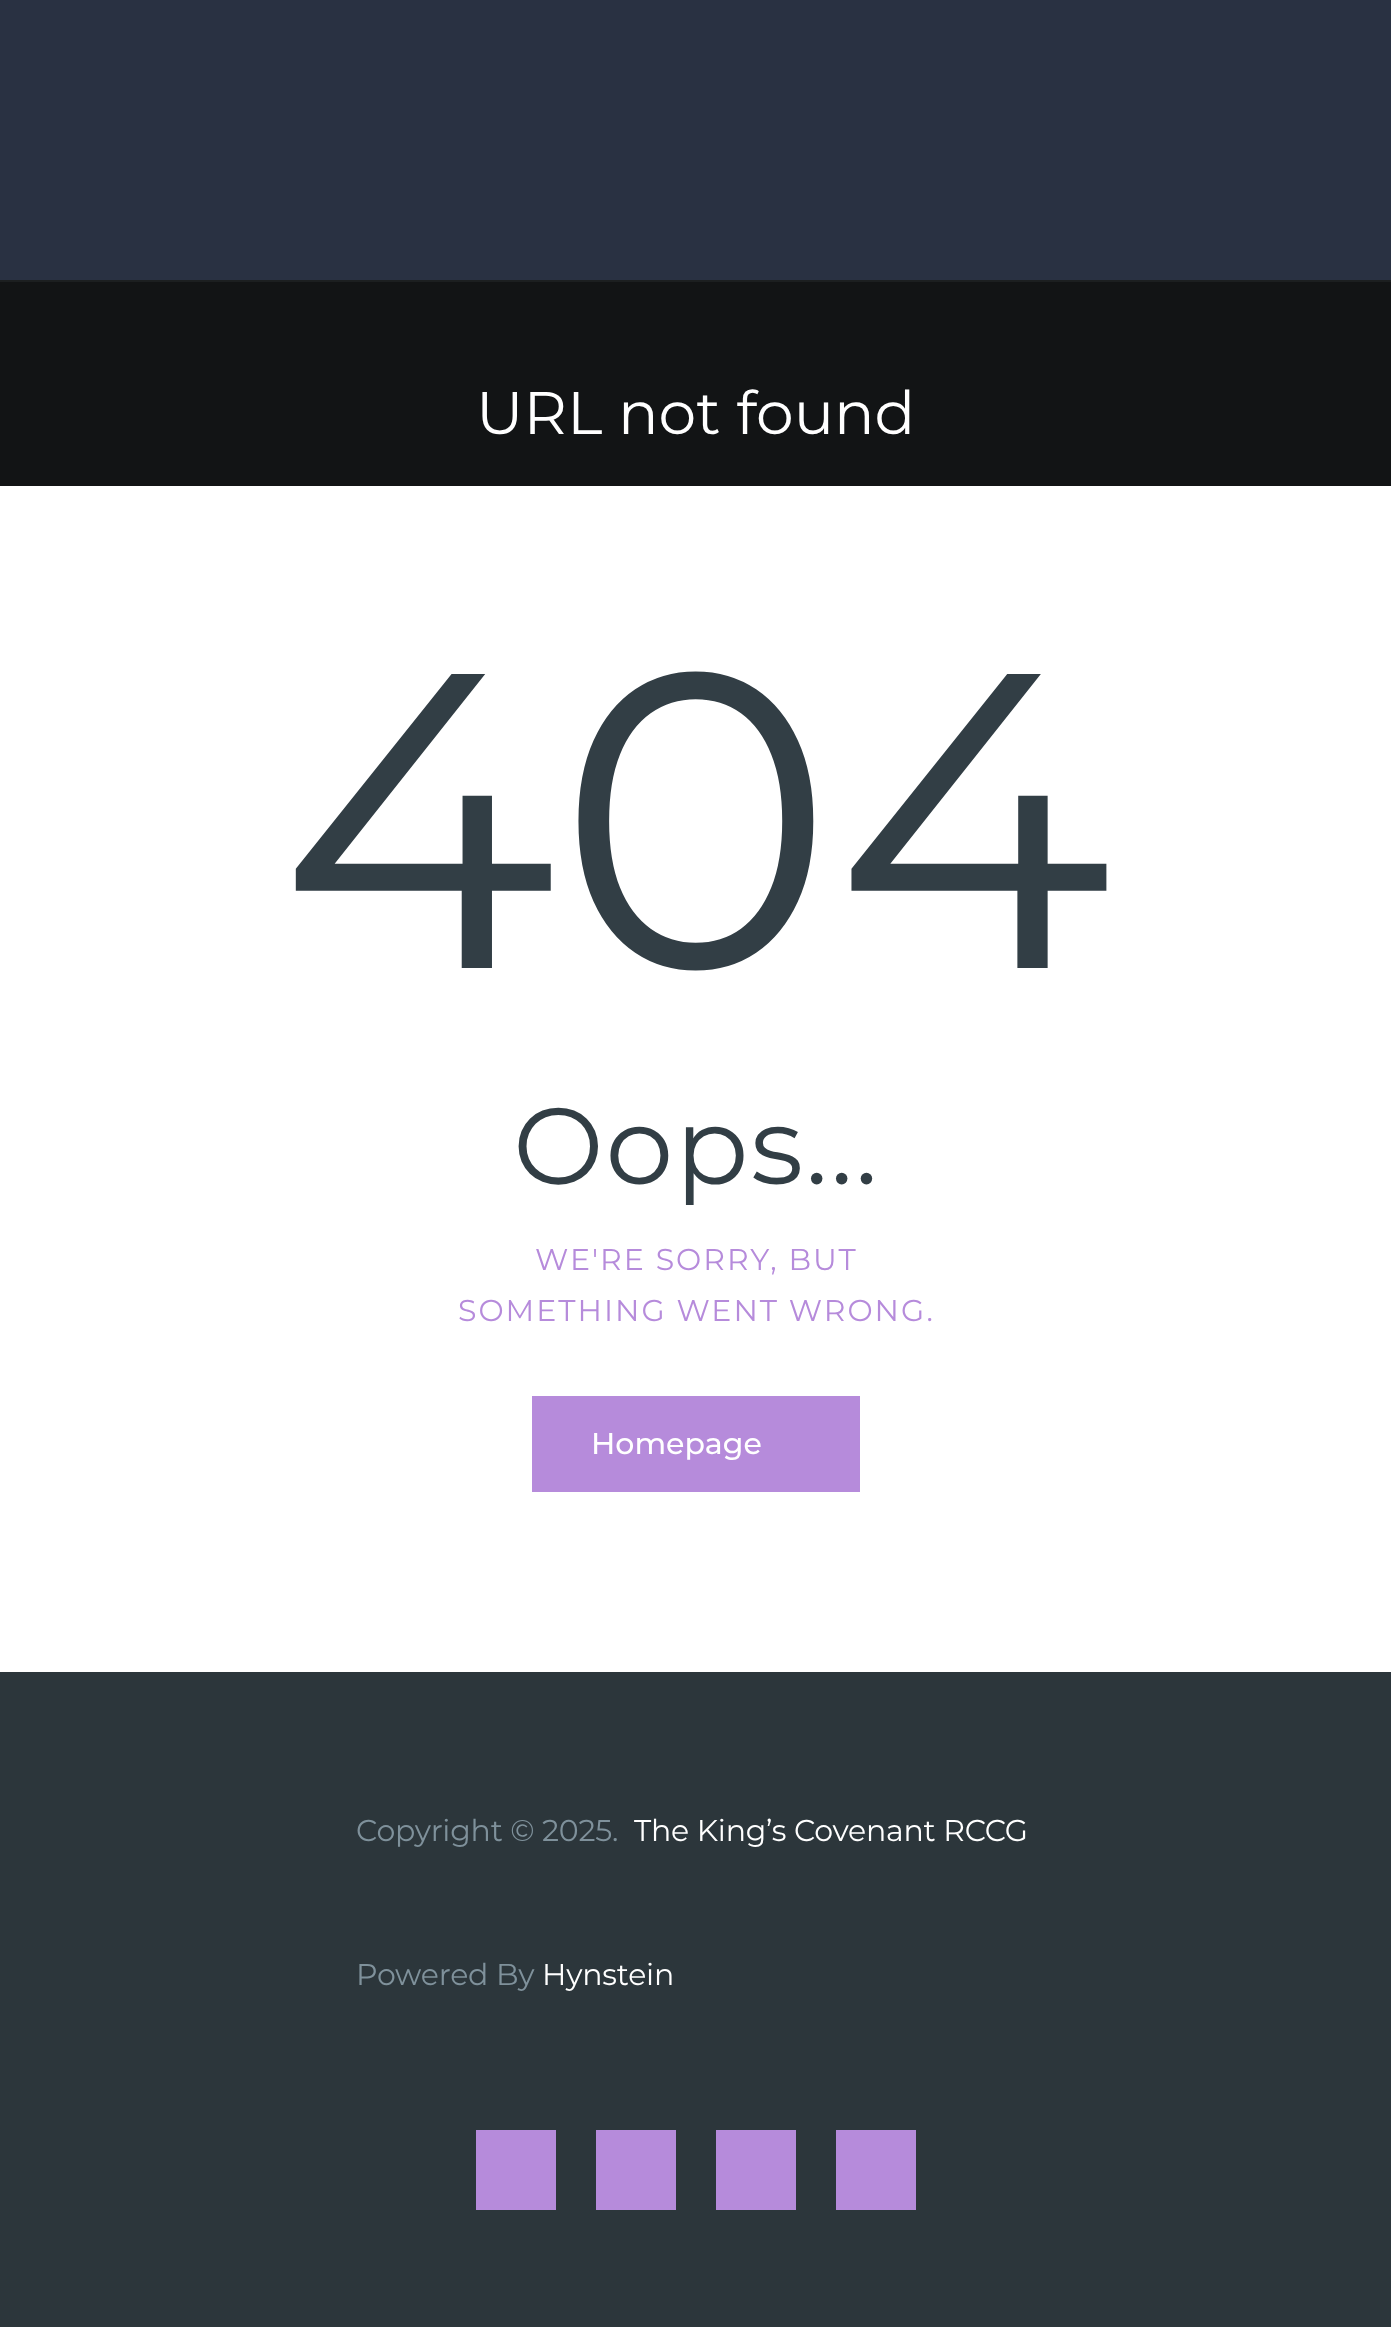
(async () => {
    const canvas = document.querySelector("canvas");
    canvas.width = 1391;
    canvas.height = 2327;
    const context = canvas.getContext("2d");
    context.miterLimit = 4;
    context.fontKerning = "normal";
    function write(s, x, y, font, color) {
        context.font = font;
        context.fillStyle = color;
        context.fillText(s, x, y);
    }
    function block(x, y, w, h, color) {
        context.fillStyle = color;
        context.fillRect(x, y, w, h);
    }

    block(0, 0, 1391, 2327, "rgb(255, 255, 255)");
    block(0, 0, 1391, 280, "rgb(41, 49, 66)");
    block(0, 280, 1391, 2, "rgb(28, 31, 32)");
    block(0, 282, 1391, 204, "rgb(18, 20, 21)");
    write("URL not found", 476, 434, "60px Montserrat", "rgb(255, 255, 255)");
    write("404", 279, 968, "420px Montserrat", "rgb(50, 62, 69)");
    context.letterSpacing = "2px";
    write("Oops...", 513, 1184, "108px Montserrat", "rgb(50, 62, 69)");
    write("WE'RE SORRY, BUT", 535, 1270, "30px Montserrat", "rgb(182, 139, 219)");
    write("SOMETHING WENT WRONG.", 458, 1321, "30px Montserrat", "rgb(182, 139, 219)");
    block(532, 1396, 328, 96, "rgb(182, 139, 219)");
    context.letterSpacing = "0px";
    write("Homepage", 591, 1454, "500 30px Montserrat", "rgb(255, 255, 255)");
    block(0, 1672, 1391, 655, "rgb(44, 54, 59)");
    context.letterSpacing = "-0.2px";
    write("Copyright © 2025.", 356, 1841, "30px Montserrat", "rgb(127, 145, 155)");
    write("The King’s Covenant RCCG", 634, 1841, "30px Montserrat", "rgb(255, 255, 255)");
    write("Powered By", 356, 1985, "30px Montserrat", "rgb(127, 145, 155)");
    write("Hynstein", 542, 1985, "30px Montserrat", "rgb(255, 255, 255)");
    block(476, 2130, 80, 80, "rgb(182, 139, 219)");
    block(596, 2130, 80, 80, "rgb(182, 139, 219)");
    block(716, 2130, 80, 80, "rgb(182, 139, 219)");
    block(836, 2130, 80, 80, "rgb(182, 139, 219)");
})();
